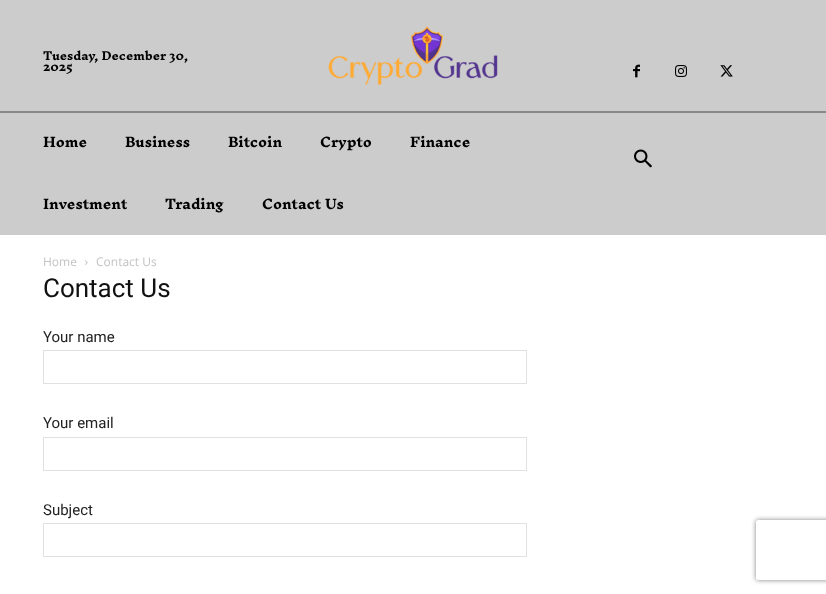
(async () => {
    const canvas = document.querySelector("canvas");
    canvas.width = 826;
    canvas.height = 594;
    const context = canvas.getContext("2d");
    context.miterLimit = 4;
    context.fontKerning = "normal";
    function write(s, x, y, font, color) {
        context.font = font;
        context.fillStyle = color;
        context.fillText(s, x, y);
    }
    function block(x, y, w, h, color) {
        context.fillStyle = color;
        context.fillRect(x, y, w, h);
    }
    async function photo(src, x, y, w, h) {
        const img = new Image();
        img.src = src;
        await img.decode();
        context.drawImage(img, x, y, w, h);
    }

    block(0, 0, 826, 594, "rgb(255, 255, 255)");
    block(0, 0, 826, 111, "rgb(204, 204, 204)");
    write("Tuesday, December 30,", 43, 60, "bold 11px Inknut Antiqua", "rgb(0, 0, 0)");
    write("2025", 43, 71, "bold 11px Inknut Antiqua", "rgb(0, 0, 0)");
    await photo("media/1.png", 328, 26, 170, 59);
    await photo("media/2.png", 633, 64, 7, 14);
    await photo("media/3.png", 675, 65, 12, 12);
    await photo("media/4.png", 720, 65, 13, 12);
    block(0, 113, 826, 122, "rgb(204, 204, 204)");
    block(0, 111, 826, 2, "rgb(136, 136, 136)");
    write("Home", 43, 147, "bold 13px Inknut Antiqua", "rgb(0, 0, 0)");
    write("Business", 125, 147, "bold 13px Inknut Antiqua", "rgb(0, 0, 0)");
    write("Bitcoin", 228, 147, "bold 13px Inknut Antiqua", "rgb(0, 0, 0)");
    write("Crypto", 320, 147, "bold 13px Inknut Antiqua", "rgb(0, 0, 0)");
    write("Finance", 410, 147, "bold 13px Inknut Antiqua", "rgb(0, 0, 0)");
    write("Investment", 43, 209, "bold 13px Inknut Antiqua", "rgb(0, 0, 0)");
    write("Trading", 165, 209, "bold 13px Inknut Antiqua", "rgb(0, 0, 0)");
    write("Contact Us", 262, 209, "bold 13px Inknut Antiqua", "rgb(0, 0, 0)");
    await photo("media/5.png", 634, 149, 18, 19);
    write("Home", 43, 266, "12px Open Sans", "rgb(195, 195, 195)");
    await photo("media/6.png", 85, 260, 3, 5);
    write("Contact Us", 96, 266, "12px Open Sans", "rgb(195, 195, 195)");
    write("Contact Us", 43, 297, "26px Roboto", "rgb(17, 17, 17)");
    write("Your name", 43, 342, "15px Roboto", "rgb(34, 34, 34)");
    context.strokeStyle = "rgb(225, 225, 225)";
    context.strokeRect(43.5, 350.5, 483, 33);
    write("Your email", 43, 428, "15px Roboto", "rgb(34, 34, 34)");
    context.strokeRect(43.5, 437.5, 483, 33);
    write("Subject", 43, 515, "15px Roboto", "rgb(34, 34, 34)");
    context.strokeRect(43.5, 523.5, 483, 33);
    context.save();
    context.beginPath();
    context.moveTo(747, 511);
    context.lineTo(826, 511);
    context.lineTo(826, 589);
    context.lineTo(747, 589);
    context.closePath();
    context.moveTo(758, 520);
    context.lineTo(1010, 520);
    context.bezierCurveTo(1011, 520, 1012, 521, 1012, 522);
    context.lineTo(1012, 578);
    context.bezierCurveTo(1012, 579, 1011, 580, 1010, 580);
    context.lineTo(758, 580);
    context.bezierCurveTo(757, 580, 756, 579, 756, 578);
    context.lineTo(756, 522);
    context.bezierCurveTo(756, 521, 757, 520, 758, 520);
    context.closePath();
    context.clip("evenodd");
    context.fillStyle = "rgb(128, 128, 128)";
    context.filter = "blur(2.5px)";
    context.beginPath();
    context.roundRect(756, 520, 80, 60, 2);
    context.fill();
    context.filter = "none";
    context.restore();
})();
